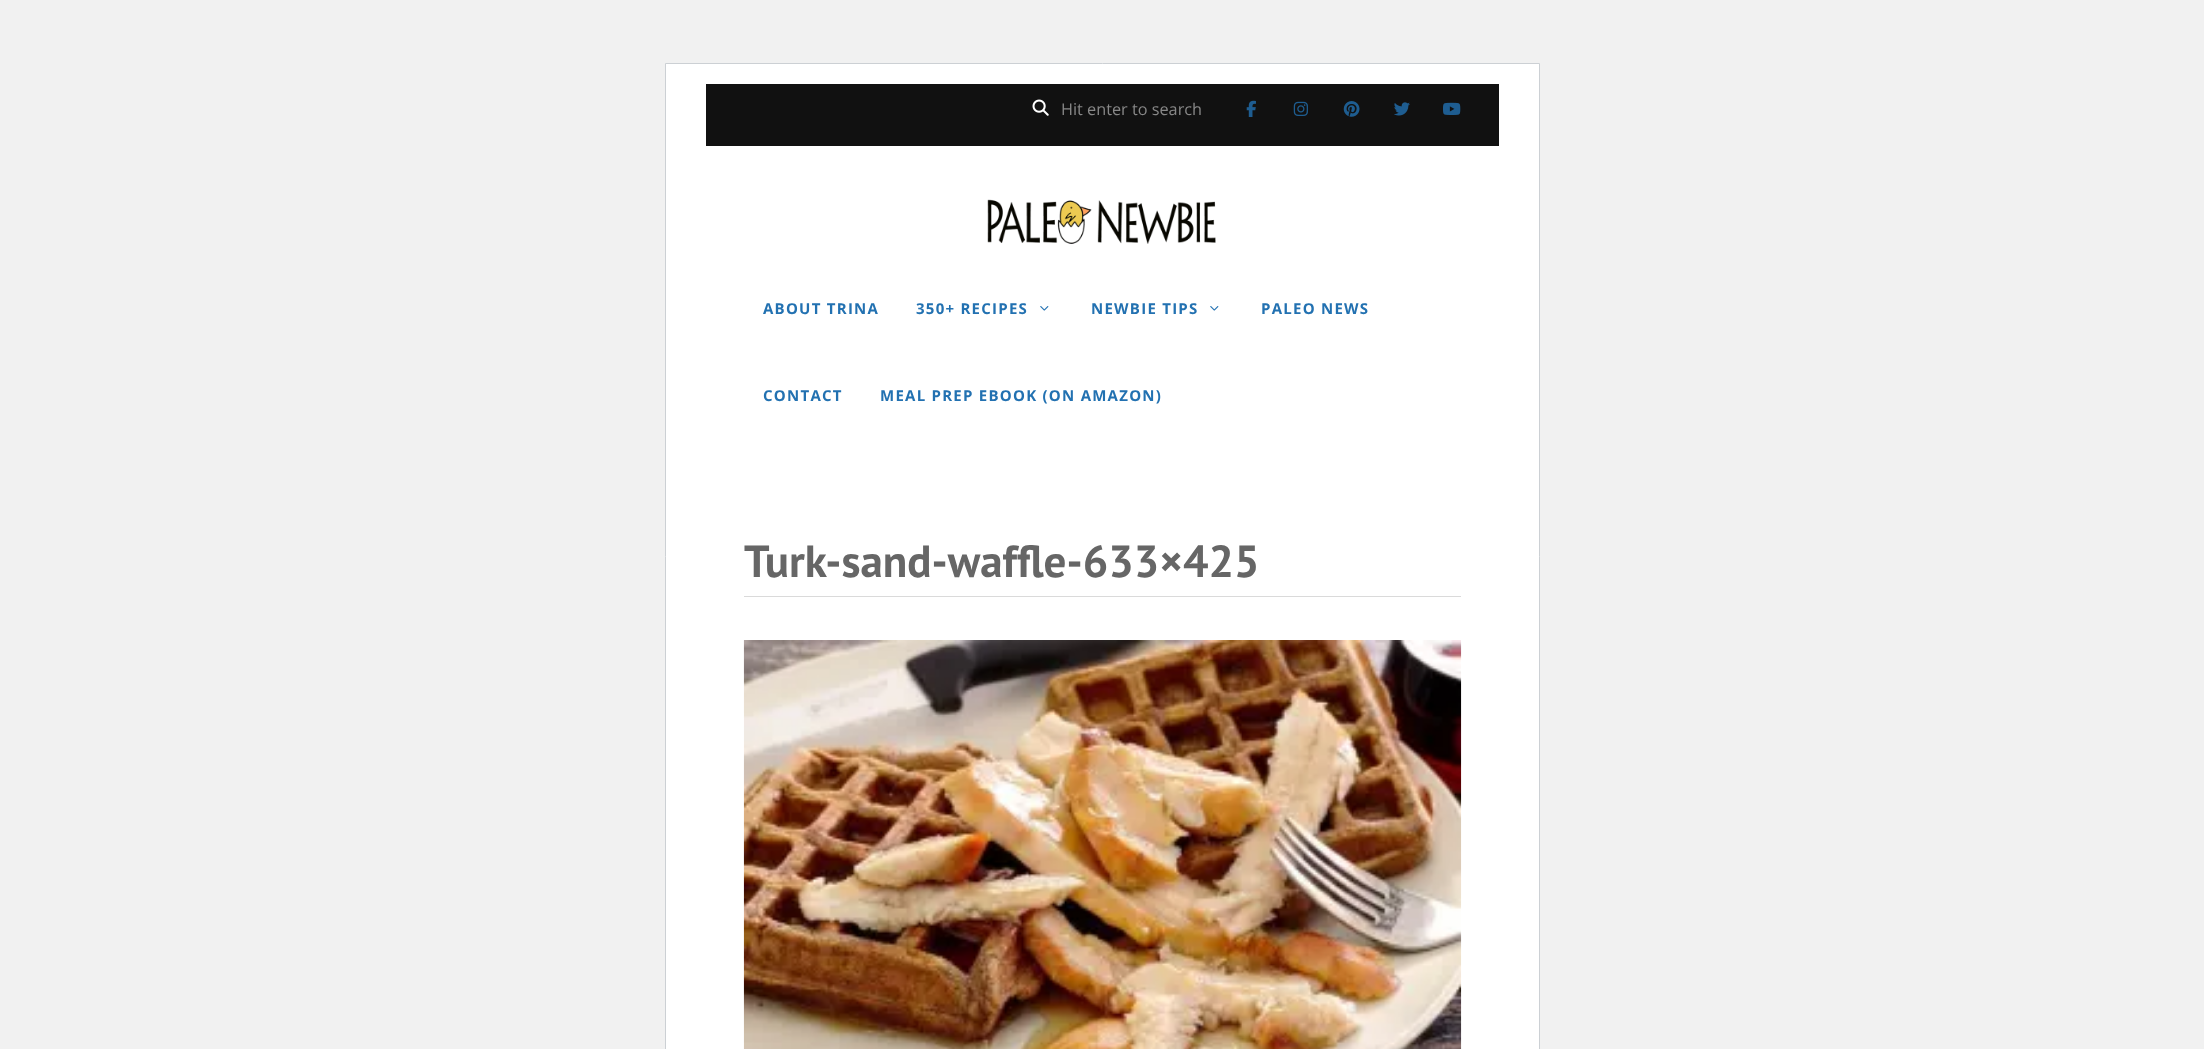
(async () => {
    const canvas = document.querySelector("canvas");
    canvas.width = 2204;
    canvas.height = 1049;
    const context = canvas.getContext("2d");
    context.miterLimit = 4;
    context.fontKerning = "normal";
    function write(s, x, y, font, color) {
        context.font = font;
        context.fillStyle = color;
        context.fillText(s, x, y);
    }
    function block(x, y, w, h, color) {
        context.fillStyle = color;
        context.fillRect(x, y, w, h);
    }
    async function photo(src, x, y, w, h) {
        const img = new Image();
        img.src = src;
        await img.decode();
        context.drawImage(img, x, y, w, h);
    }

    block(0, 0, 2204, 1049, "rgb(241, 241, 241)");
    context.fillStyle = "rgb(255, 255, 255)";
    context.beginPath();
    context.rect(665.5, 63.5, 874, 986);
    context.fill();
    context.strokeStyle = "rgb(204, 208, 212)";
    context.stroke();
    block(706, 84, 793, 62, "rgb(17, 17, 17)");
    await photo("media/1.png", 1032, 99, 17, 17);
    write("Hit enter to search", 1061, 115, "16.25px Open Sans", "rgb(136, 136, 136)");
    await photo("media/2.png", 1246, 100, 10, 17);
    await photo("media/3.png", 1293, 101, 15, 15);
    await photo("media/4.png", 1343, 101, 17, 16);
    await photo("media/5.png", 1394, 102, 16, 14);
    await photo("media/6.png", 1443, 102, 18, 13);
    await photo("media/7.png", 987, 199, 229, 45);
    context.letterSpacing = "1.25px";
    write("ABOUT TRINA", 763, 314, "bold 15px Open Sans", "rgb(34, 113, 177)");
    write("350+ RECIPES", 916, 314, "bold 15px Open Sans", "rgb(34, 113, 177)");
    await photo("media/8.png", 1040, 306, 9, 5);
    write("NEWBIE TIPS", 1091, 314, "bold 15px Open Sans", "rgb(34, 113, 177)");
    await photo("media/8.png", 1210, 306, 9, 5);
    write("PALEO NEWS", 1261, 314, "bold 15px Open Sans", "rgb(34, 113, 177)");
    write("CONTACT", 763, 401, "bold 15px Open Sans", "rgb(34, 113, 177)");
    write("MEAL PREP EBOOK (ON AMAZON)", 880, 401, "bold 15px Open Sans", "rgb(34, 113, 177)");
    block(744, 596, 717, 1, "rgb(218, 218, 218)");
    context.letterSpacing = "0px";
    write("Turk-sand-waffle-633×425", 744, 577, "bold 45px PT Sans", "rgb(102, 102, 102)");
    await photo("media/9.png", 743, 640, 719, 409);
})();
